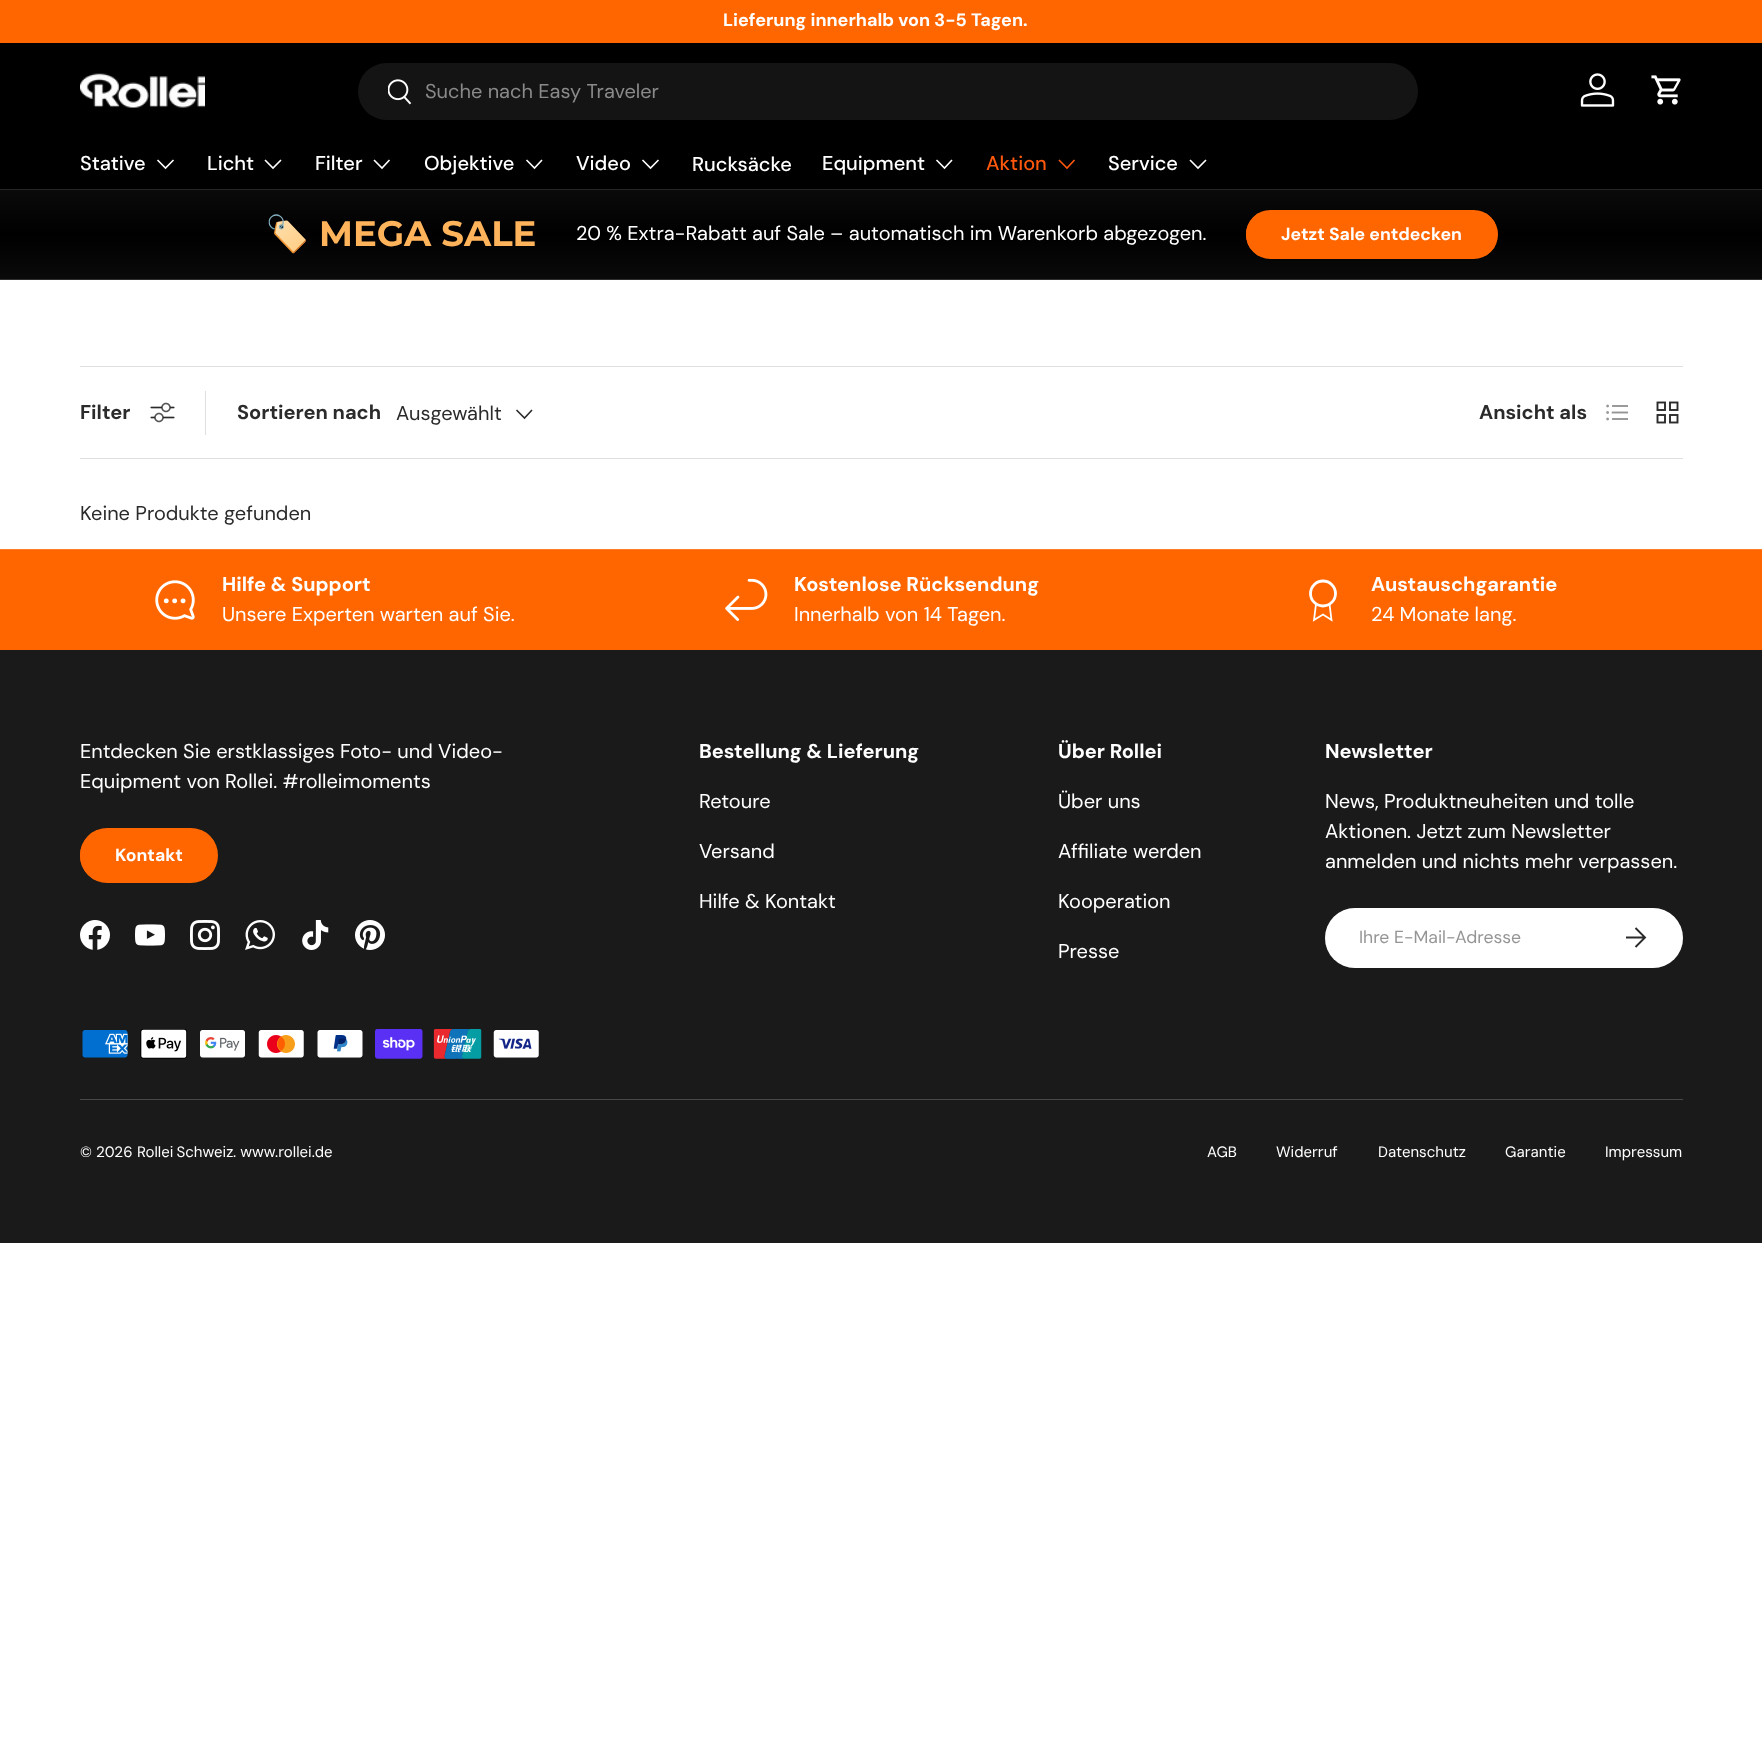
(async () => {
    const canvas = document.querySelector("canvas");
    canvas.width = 1762;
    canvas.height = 1760;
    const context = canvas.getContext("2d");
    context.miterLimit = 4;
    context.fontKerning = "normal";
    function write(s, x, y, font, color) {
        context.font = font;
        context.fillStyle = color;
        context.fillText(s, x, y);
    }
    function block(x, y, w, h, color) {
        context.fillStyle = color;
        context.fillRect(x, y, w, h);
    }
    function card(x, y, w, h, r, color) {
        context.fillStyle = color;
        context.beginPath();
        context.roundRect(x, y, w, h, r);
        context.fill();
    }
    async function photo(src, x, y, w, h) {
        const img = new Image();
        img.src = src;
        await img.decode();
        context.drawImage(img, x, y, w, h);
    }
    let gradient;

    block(0, 0, 1762, 1760, "rgb(255, 255, 255)");
    block(0, 0, 1762, 43, "rgb(255, 102, 0)");
    write("Lieferung innerhalb von 3-5 Tagen.", 723, 26, "bold 18px 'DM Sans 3'", "rgb(255, 255, 255)");
    block(0, 43, 1762, 146, "rgb(0, 0, 0)");
    block(0, 189, 1762, 1, "rgb(38, 38, 38)");
    await photo("media/1.png", 80, 73, 125, 35);
    card(358, 63, 1060, 57, 28.5, "rgb(20, 20, 20)");
    await photo("media/2.png", 388, 79, 24, 26);
    write("Suche nach Easy Traveler", 425, 98, "20px DM Sans", "rgb(138, 138, 138)");
    await photo("media/3.png", 1580, 73, 35, 34);
    await photo("media/4.png", 1651, 75, 30, 30);
    write("Stative", 80, 170, "500 20px DM Sans", "rgb(255, 255, 255)");
    context.beginPath();
    context.moveTo(173.5, 160);
    context.lineTo(165.5, 168);
    context.lineTo(157.5, 160);
    context.strokeStyle = "rgb(255, 255, 255)";
    context.lineWidth = 1.6;
    context.stroke();
    write("Licht", 207, 170, "500 20px DM Sans", "rgb(255, 255, 255)");
    context.beginPath();
    context.moveTo(281, 160);
    context.lineTo(273, 168);
    context.lineTo(265, 160);
    context.stroke();
    write("Filter", 315, 170, "500 20px DM Sans", "rgb(255, 255, 255)");
    context.beginPath();
    context.moveTo(389.5, 160);
    context.lineTo(382, 168);
    context.lineTo(374, 160);
    context.stroke();
    write("Objektive", 424, 170, "500 20px DM Sans", "rgb(255, 255, 255)");
    context.beginPath();
    context.moveTo(542, 160);
    context.lineTo(534.5, 168);
    context.lineTo(526.5, 160);
    context.stroke();
    write("Video", 576, 170, "500 20px DM Sans", "rgb(255, 255, 255)");
    context.beginPath();
    context.moveTo(658.5, 160);
    context.lineTo(650.5, 168);
    context.lineTo(642.5, 160);
    context.stroke();
    write("Rucksäcke", 692, 171, "500 20px DM Sans", "rgb(255, 255, 255)");
    write("Equipment", 822, 170, "500 20px DM Sans", "rgb(255, 255, 255)");
    context.beginPath();
    context.moveTo(952, 160);
    context.lineTo(944.5, 168);
    context.lineTo(936.5, 160);
    context.stroke();
    write("Aktion", 986, 170, "500 20px DM Sans", "rgb(255, 88, 13)");
    context.beginPath();
    context.moveTo(1074.5, 160);
    context.lineTo(1067, 168);
    context.lineTo(1059, 160);
    context.strokeStyle = "rgb(255, 88, 13)";
    context.stroke();
    write("Service", 1108, 170, "500 20px DM Sans", "rgb(255, 255, 255)");
    context.beginPath();
    context.moveTo(1206, 160);
    context.lineTo(1198, 168);
    context.lineTo(1190, 160);
    context.strokeStyle = "rgb(255, 255, 255)";
    context.stroke();
    gradient = context.createLinearGradient(881, 190, 881, 279);
    gradient.addColorStop(0, "rgb(10, 10, 10)");
    gradient.addColorStop(0.5, "rgb(0, 0, 0)");
    gradient.addColorStop(1, "rgb(10, 10, 10)");
    context.fillStyle = gradient;
    context.fillRect(0, 190, 1762, 89);
    block(0, 279, 1762, 1, "rgb(47, 47, 47)");
    write("🏷️", 265, 246, "bold 35.5px Noto Color Emoji", "rgb(255, 180, 92)");
    write("MEGA SALE", 319, 246, "bold 35.5px Montserrat", "rgb(255, 180, 92)");
    write("20 % Extra-Rabatt auf Sale – automatisch im Warenkorb abgezogen.", 576, 240, "20px DM Sans", "rgb(255, 255, 255)");
    context.save();
    context.beginPath();
    context.roundRect(1246, 210, 252, 49, 24.5);
    context.clip();
    gradient = context.createLinearGradient(773, 146, 1479, 322);
    gradient.addColorStop(0.6, "rgb(255, 134, 53)");
    gradient.addColorStop(0.6, "rgb(255, 102, 0)");
    gradient.addColorStop(1, "rgb(255, 102, 0)");
    context.fillStyle = gradient;
    context.fillRect(1246, 213, 249, 43);
    context.restore();
    context.beginPath();
    context.roundRect(1247.5, 211.5, 249, 46, 23);
    context.strokeStyle = "rgb(255, 102, 0)";
    context.lineWidth = 3;
    context.stroke();
    write("Jetzt Sale entdecken", 1281, 240, "bold 17.6px DM Sans", "rgb(255, 255, 255)");
    block(80, 366, 1603, 1, "rgb(223, 223, 223)");
    block(80, 458, 1603, 1, "rgb(223, 223, 223)");
    write("Filter", 80, 419, "bold 20px 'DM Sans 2'", "rgb(42, 43, 42)");
    await photo("media/5.png", 150, 402, 25, 21);
    block(205, 391, 1, 44, "rgb(223, 223, 223)");
    write("Sortieren nach", 237, 419, "bold 20px 'DM Sans 2'", "rgb(42, 43, 42)");
    write("Ausgewählt", 396, 420, "20px DM Sans", "rgb(42, 43, 42)");
    context.beginPath();
    context.moveTo(532, 410);
    context.lineTo(524.5, 418);
    context.lineTo(516.5, 410);
    context.strokeStyle = "rgb(42, 43, 42)";
    context.lineWidth = 1.6;
    context.stroke();
    write("Ansicht als", 1479, 419, "bold 20px 'DM Sans 2'", "rgb(42, 43, 42)");
    await photo("media/6.png", 1606, 404, 23, 17);
    await photo("media/7.png", 1656, 401, 23, 23);
    write("Keine Produkte gefunden", 80, 520, "20px DM Sans", "rgb(42, 43, 42)");
    block(0, 550, 1762, 100, "rgb(255, 102, 0)");
    block(0, 549, 1762, 1, "rgb(255, 125, 38)");
    await photo("media/8.png", 155, 580, 40, 40);
    write("Hilfe & Support", 222, 591, "bold 20px 'DM Sans 2'", "rgb(255, 255, 255)");
    write("Unsere Experten warten auf Sie.", 222, 621, "20px DM Sans", "rgb(255, 255, 255)");
    await photo("media/9.png", 725, 578, 43, 43);
    write("Kostenlose Rücksendung", 794, 591, "bold 20px 'DM Sans 2'", "rgb(255, 255, 255)");
    write("Innerhalb von 14 Tagen.", 794, 621, "20px DM Sans", "rgb(255, 255, 255)");
    context.beginPath();
    context.arc(1323, 593.5, 12.5, 0, Math.PI * 2);
    context.strokeStyle = "rgb(255, 255, 255)";
    context.lineWidth = 2.8;
    context.stroke();
    context.beginPath();
    context.moveTo(1316, 604);
    context.lineTo(1314, 620);
    context.lineTo(1323, 614.5);
    context.lineTo(1331.5, 620);
    context.lineTo(1329.5, 604);
    context.lineWidth = 1.8;
    context.stroke();
    write("Austauschgarantie", 1371, 591, "bold 20px 'DM Sans 2'", "rgb(255, 255, 255)");
    write("24 Monate lang.", 1371, 621, "20px DM Sans", "rgb(255, 255, 255)");
    block(0, 650, 1762, 593, "rgb(26, 26, 26)");
    write("Entdecken Sie erstklassiges Foto- und Video-", 80, 758, "20px DM Sans", "rgb(255, 255, 255)");
    write("Equipment von Rollei. #rolleimoments", 80, 788, "20px DM Sans", "rgb(255, 255, 255)");
    context.save();
    context.beginPath();
    context.roundRect(80, 828, 138, 55, 27.5);
    context.clip();
    gradient = context.createLinearGradient(-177, 807, 209, 903);
    gradient.addColorStop(0.6, "rgb(255, 134, 53)");
    gradient.addColorStop(0.6, "rgb(255, 102, 0)");
    gradient.addColorStop(1, "rgb(255, 102, 0)");
    context.fillStyle = gradient;
    context.fillRect(80, 830, 135, 50);
    context.restore();
    context.beginPath();
    context.roundRect(81.5, 829.5, 135, 52, 26);
    context.strokeStyle = "rgb(255, 102, 0)";
    context.lineWidth = 3;
    context.stroke();
    write("Kontakt", 115, 861, "bold 17.6px DM Sans", "rgb(255, 255, 255)");
    await photo("media/10.png", 80, 920, 30, 30);
    await photo("media/11.png", 135, 924, 30, 22);
    await photo("media/12.png", 190, 920, 30, 30);
    await photo("media/13.png", 245, 920, 30, 30);
    await photo("media/14.png", 302, 920, 27, 30);
    await photo("media/15.png", 355, 920, 30, 30);
    write("Bestellung & Lieferung", 699, 758, "bold 20px 'DM Sans 2'", "rgb(255, 255, 255)");
    write("Retoure", 699, 808, "20px DM Sans", "rgb(255, 255, 255)");
    write("Versand", 699, 858, "20px DM Sans", "rgb(255, 255, 255)");
    write("Hilfe & Kontakt", 699, 908, "20px DM Sans", "rgb(255, 255, 255)");
    write("Über Rollei", 1058, 758, "bold 20px 'DM Sans 2'", "rgb(255, 255, 255)");
    write("Über uns", 1058, 808, "20px DM Sans", "rgb(255, 255, 255)");
    write("Affiliate werden", 1058, 858, "20px DM Sans", "rgb(255, 255, 255)");
    write("Kooperation", 1058, 908, "20px DM Sans", "rgb(255, 255, 255)");
    write("Presse", 1058, 958, "20px DM Sans", "rgb(255, 255, 255)");
    write("Newsletter", 1325, 758, "bold 20px 'DM Sans 2'", "rgb(255, 255, 255)");
    write("News, Produktneuheiten und tolle", 1325, 808, "20px DM Sans", "rgb(255, 255, 255)");
    write("Aktionen. Jetzt zum Newsletter", 1325, 838, "20px DM Sans", "rgb(255, 255, 255)");
    write("anmelden und nichts mehr verpassen.", 1325, 868, "20px DM Sans", "rgb(255, 255, 255)");
    card(1325, 908, 358, 60, 30, "rgb(255, 255, 255)");
    context.beginPath();
    context.roundRect(1326.5, 909.5, 355, 57, 28.5);
    context.strokeStyle = "rgba(255, 255, 255, 0.2)";
    context.stroke();
    write("Ihre E-Mail-Adresse", 1359, 943, "17.6px 'DM Sans 2'", "rgb(149, 149, 149)");
    context.beginPath();
    context.moveTo(1626, 937.5);
    context.lineTo(1644, 937.5);
    context.moveTo(1635.5, 928);
    context.lineTo(1645, 937.5);
    context.lineTo(1635.5, 947);
    context.strokeStyle = "rgb(42, 43, 42)";
    context.lineWidth = 1.9;
    context.stroke();
    await photo("media/16.png", 82, 1030, 46, 28);
    await photo("media/17.png", 140, 1029, 48, 30);
    await photo("media/18.png", 200, 1030, 45, 28);
    await photo("media/19.png", 258, 1030, 46, 28);
    await photo("media/20.png", 317, 1030, 46, 28);
    await photo("media/21.png", 375, 1029, 48, 30);
    await photo("media/22.png", 433, 1029, 49, 30);
    await photo("media/23.png", 493, 1030, 46, 28);
    block(80, 1099, 1603, 1, "rgb(72, 72, 72)");
    write("© 2026", 80, 1157, "15px 'DM Sans 3'", "rgb(255, 255, 255)");
    context.wordSpacing = "-1px";
    write("Rollei Schweiz", 137, 1157, "15px 'DM Sans 3'", "rgb(255, 255, 255)");
    context.wordSpacing = "0px";
    write(". www.rollei.de", 233, 1157, "15px 'DM Sans 3'", "rgb(255, 255, 255)");
    write("AGB", 1207, 1157, "15px 'DM Sans 3'", "rgb(255, 255, 255)");
    write("Widerruf", 1276, 1157, "15px 'DM Sans 3'", "rgb(255, 255, 255)");
    write("Datenschutz", 1378, 1157, "15px 'DM Sans 3'", "rgb(255, 255, 255)");
    write("Garantie", 1505, 1157, "15px 'DM Sans 3'", "rgb(255, 255, 255)");
    write("Impressum", 1605, 1157, "15px 'DM Sans 3'", "rgb(255, 255, 255)");
})();
